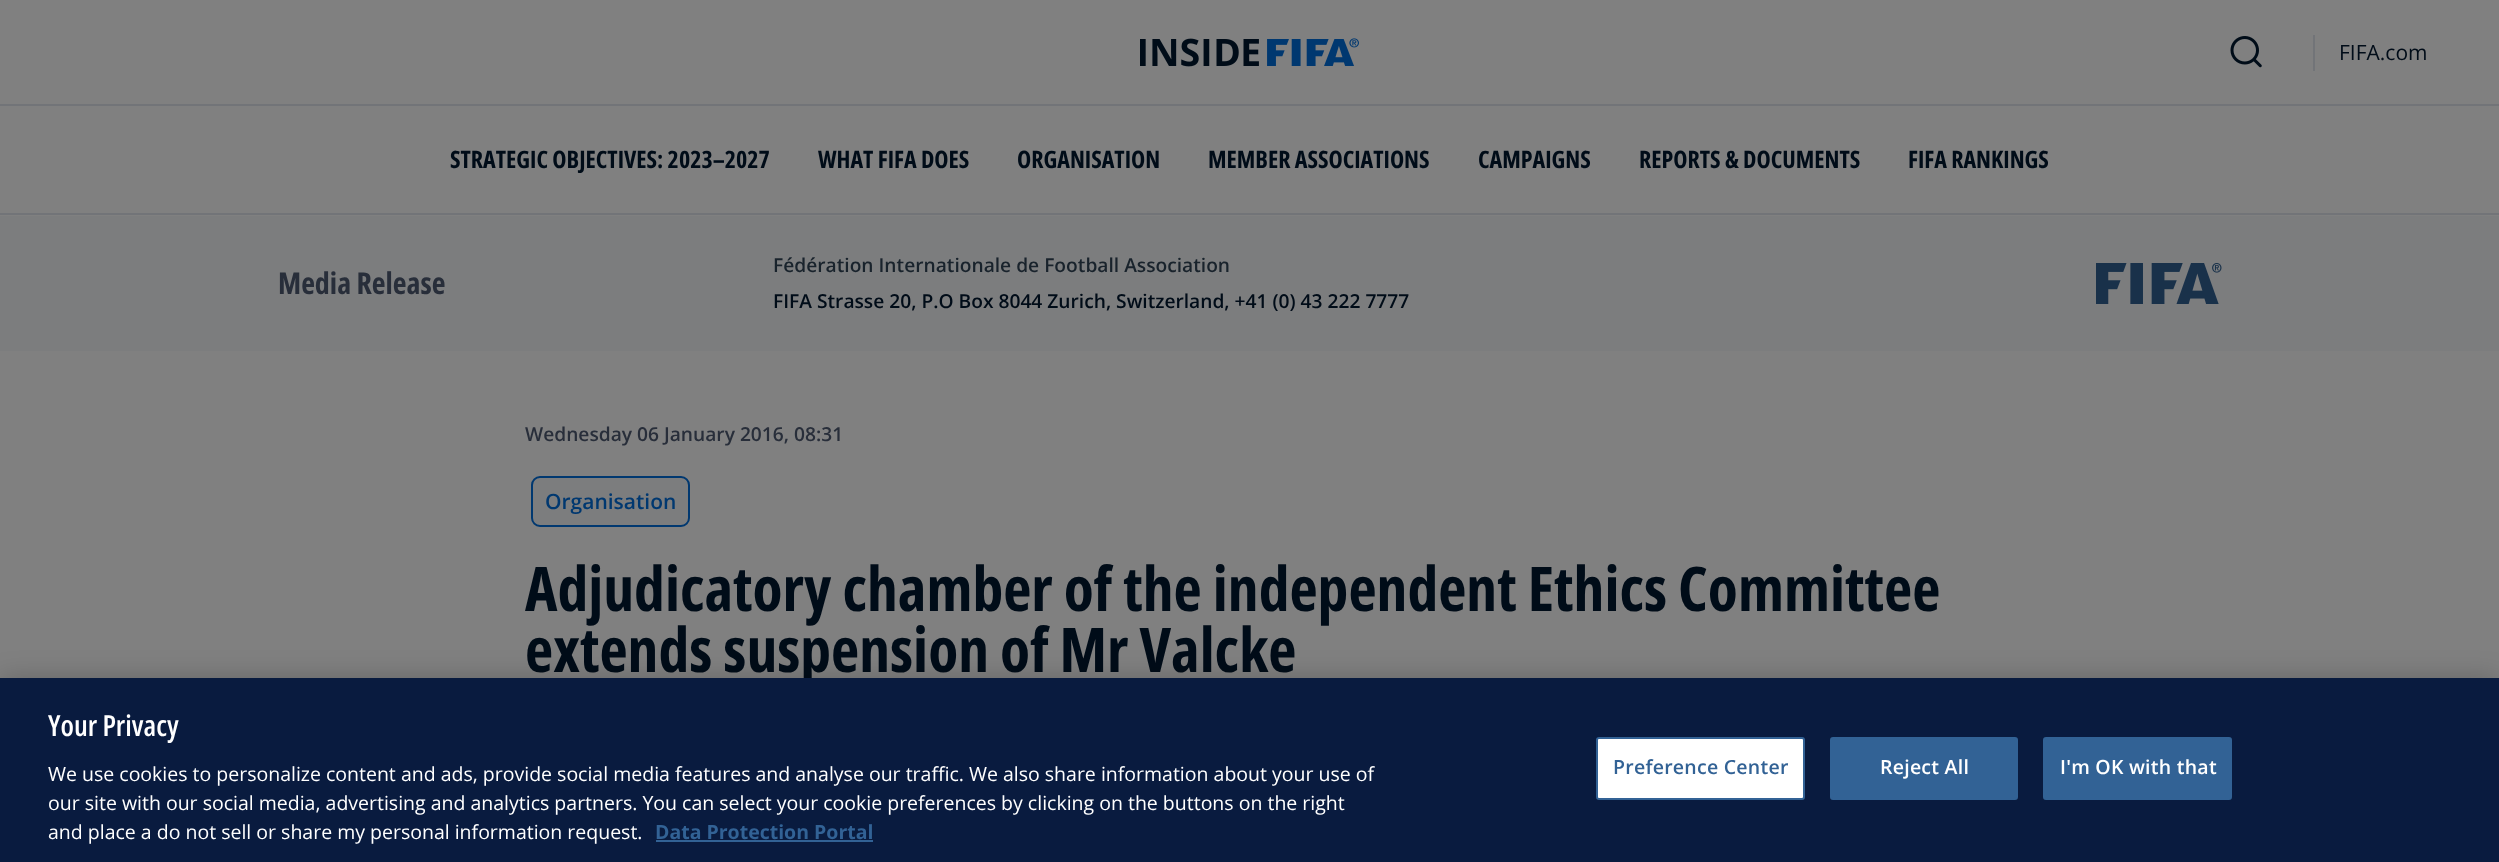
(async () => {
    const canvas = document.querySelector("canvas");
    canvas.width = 2499;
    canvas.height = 862;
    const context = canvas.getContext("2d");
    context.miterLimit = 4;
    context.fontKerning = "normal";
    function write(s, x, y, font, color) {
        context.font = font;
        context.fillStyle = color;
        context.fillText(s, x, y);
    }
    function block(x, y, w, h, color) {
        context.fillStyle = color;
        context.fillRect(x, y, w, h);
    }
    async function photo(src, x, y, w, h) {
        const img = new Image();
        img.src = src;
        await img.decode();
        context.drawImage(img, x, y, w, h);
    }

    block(0, 0, 2499, 862, "rgb(128, 128, 128)");
    block(0, 104, 2499, 2, "rgb(114, 116, 120)");
    await photo("media/1.png", 1140, 38, 219, 29);
    block(2313, 35, 2, 36, "rgb(114, 116, 120)");
    await photo("media/2.png", 2230, 36, 32, 32);
    write("FIFA.com", 2339, 60, "21px Open Sans", "rgb(0, 12, 24)");
    block(0, 213, 2499, 2, "rgb(114, 116, 120)");
    write("STRATEGIC OBJECTIVES: 2023–2027", 450, 168, "bold 24px Open Sans", "rgb(0, 12, 24)");
    write("WHAT FIFA DOES", 818, 168, "bold 24px Open Sans", "rgb(0, 12, 24)");
    write("ORGANISATION", 1017, 168, "bold 24px Open Sans", "rgb(0, 12, 24)");
    write("MEMBER ASSOCIATIONS", 1208, 168, "bold 24px Open Sans", "rgb(0, 12, 24)");
    write("CAMPAIGNS", 1478, 168, "bold 24px Open Sans", "rgb(0, 12, 24)");
    write("REPORTS & DOCUMENTS", 1639, 168, "bold 24px Open Sans", "rgb(0, 12, 24)");
    write("FIFA RANKINGS", 1908, 168, "bold 24px Open Sans", "rgb(0, 12, 24)");
    block(0, 216, 2499, 135, "rgb(124, 125, 126)");
    write("Media Release", 278, 294, "bold 30px Open Sans", "rgb(40, 46, 58)");
    write("Fédération Internationale de Football Association", 773, 272, "600 19.2px Open Sans", "rgb(25, 35, 44)");
    write("FIFA Strasse 20, P.O Box 8044 Zurich, Switzerland, +41 (0) 43 222 7777", 773, 308, "600 19.2px Open Sans", "rgb(0, 12, 24)");
    await photo("media/3.png", 2096, 263, 126, 41);
    write("Wednesday 06 January 2016, 08:31", 525, 441, "600 19.2px Open Sans", "rgb(40, 46, 58)");
    context.fillStyle = "rgb(124, 125, 126)";
    context.beginPath();
    context.roundRect(532, 477, 157, 49, 8);
    context.fill();
    context.strokeStyle = "rgb(0, 56, 112)";
    context.lineWidth = 2;
    context.stroke();
    write("Organisation", 545, 509, "600 21px Open Sans", "rgb(0, 56, 112)");
    write("Adjudicatory chamber of the independent Ethics Committee", 525, 611, "bold 61.6px Open Sans", "rgb(0, 12, 24)");
    write("extends suspension of Mr Valcke", 525, 672, "bold 61.6px Open Sans", "rgb(0, 12, 24)");
    context.fillStyle = "rgba(0, 0, 0, 0.2)";
    context.filter = "blur(13.5px)";
    context.beginPath();
    context.rect(0, 678, 2499, 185);
    context.fill();
    context.filter = "none";
    block(0, 678, 2499, 184, "rgb(9, 27, 63)");
    write("Your Privacy", 48, 736, "600 29px 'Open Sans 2'", "rgb(255, 255, 255)");
    write("We use cookies to personalize content and ads, provide social media features and analyse our traffic. We also share information about your use of", 48, 781, "19.5px Open Sans", "rgb(255, 255, 255)");
    write("our site with our social media, advertising and analytics partners. You can select your cookie preferences by clicking on the buttons on the right", 48, 810, "19.5px Open Sans", "rgb(255, 255, 255)");
    write("and place a do not sell or share my personal information request.", 48, 839, "19.5px Open Sans", "rgb(255, 255, 255)");
    write("Data Protection Portal", 655, 839, "bold 19.5px 'Open Sans 2'", "rgb(50, 98, 149)");
    block(656, 840, 217, 2, "rgb(50, 98, 149)");
    context.fillStyle = "rgb(255, 255, 255)";
    context.beginPath();
    context.roundRect(1597, 738, 207, 61, 2);
    context.fill();
    context.strokeStyle = "rgb(50, 98, 149)";
    context.stroke();
    context.letterSpacing = "0.25px";
    write("Preference Center", 1613, 774, "600 19.5px Open Sans", "rgb(50, 98, 149)");
    context.beginPath();
    context.roundRect(1831, 738, 186, 61, 2);
    context.fill();
    context.stroke();
    write("Reject All", 1880, 774, "600 19.5px Open Sans", "rgb(255, 255, 255)");
    context.fillStyle = "rgb(50, 98, 149)";
    context.beginPath();
    context.roundRect(2044, 738, 187, 61, 2);
    context.fill();
    context.stroke();
    write("I'm OK with that", 2060, 774, "600 19.5px Open Sans", "rgb(255, 255, 255)");
})();
